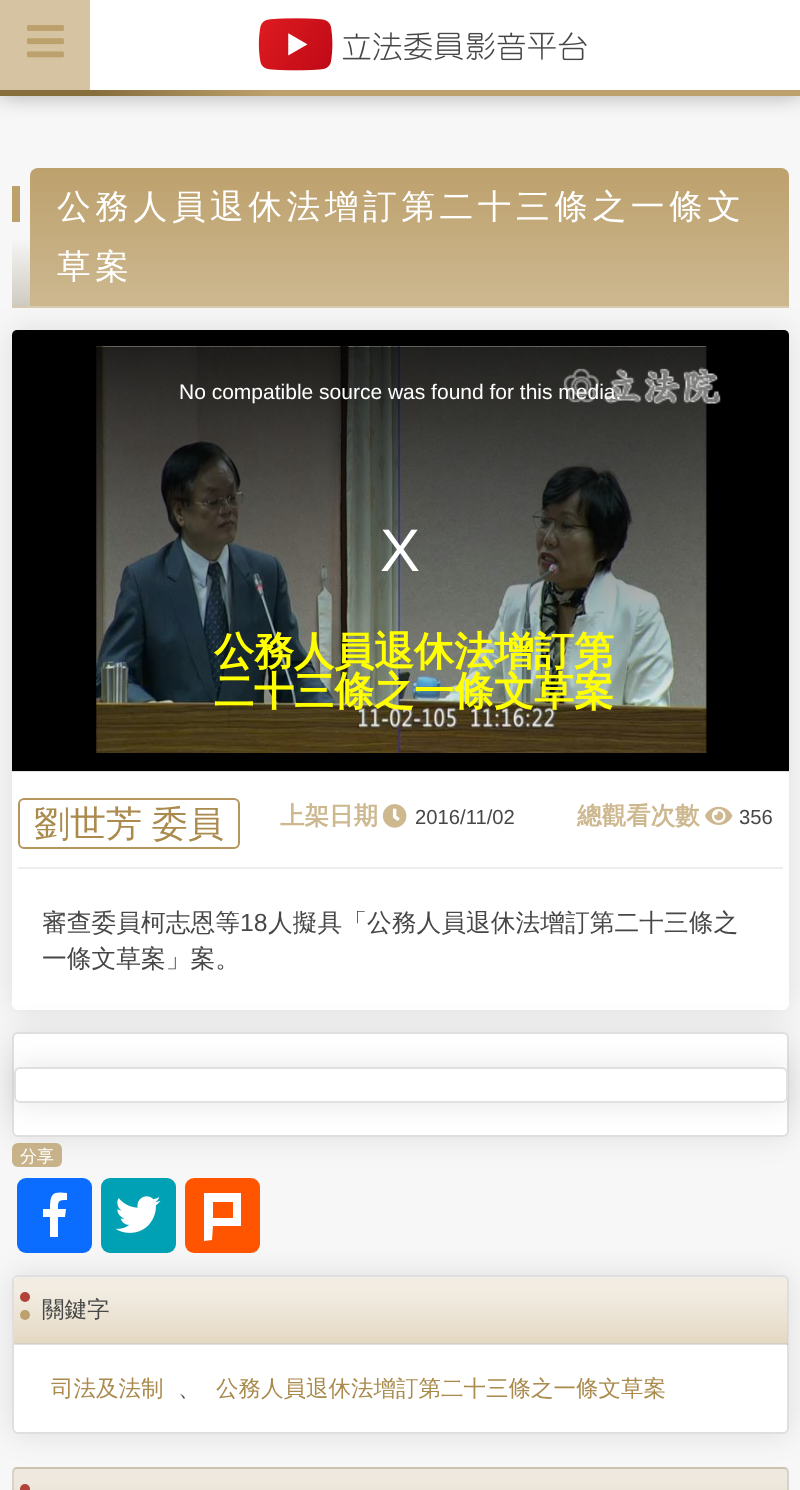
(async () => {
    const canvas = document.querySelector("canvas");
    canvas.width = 800;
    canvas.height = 1490;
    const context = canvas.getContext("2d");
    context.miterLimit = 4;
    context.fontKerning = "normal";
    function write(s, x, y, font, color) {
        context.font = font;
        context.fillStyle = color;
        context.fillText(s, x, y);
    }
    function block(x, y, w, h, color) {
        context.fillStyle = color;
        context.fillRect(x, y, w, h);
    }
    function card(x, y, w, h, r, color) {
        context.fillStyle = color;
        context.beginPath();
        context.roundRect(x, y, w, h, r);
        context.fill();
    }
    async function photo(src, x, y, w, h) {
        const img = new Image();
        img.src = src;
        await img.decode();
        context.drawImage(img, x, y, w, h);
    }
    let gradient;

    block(0, 0, 800, 1490, "rgb(247, 247, 247)");
    context.fillStyle = "rgba(0, 0, 0, 0.3)";
    context.filter = "blur(11px)";
    context.beginPath();
    context.rect(0, 0, 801, 96);
    context.fill();
    context.filter = "none";
    gradient = context.createLinearGradient(0, 48, 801, 48);
    gradient.addColorStop(0.12, "rgb(135, 110, 61)");
    gradient.addColorStop(0.34, "rgb(189, 161, 109)");
    context.fillStyle = gradient;
    context.fillRect(0, 90, 800, 6);
    block(90, 0, 710, 90, "rgb(255, 255, 255)");
    await photo("media/1.png", 258, 18, 329, 53);
    block(0, 0, 90, 90, "rgb(213, 195, 162)");
    await photo("media/2.png", 27, 25, 37, 33);
    gradient = context.createLinearGradient(401, 168, 401, 306);
    gradient.addColorStop(0.5, "rgb(247, 247, 247)");
    gradient.addColorStop(1, "rgb(208, 203, 192)");
    context.fillStyle = gradient;
    context.fillRect(12, 240, 777, 66);
    block(12, 306, 777, 2, "rgb(218, 204, 178)");
    block(12, 186, 8, 36, "rgb(189, 161, 109)");
    gradient = context.createLinearGradient(410, 168, 410, 306);
    gradient.addColorStop(0, "rgb(189, 161, 109)");
    gradient.addColorStop(1, "rgb(205, 184, 144)");
    context.fillStyle = gradient;
    context.beginPath();
    context.roundRect(30, 168, 759, 138, [8, 8, 0, 0]);
    context.fill();
    context.letterSpacing = "4.5px";
    write("公務人員退休法增訂第二十三條之一條文", 57, 218, "500 33.75px WenQuanYi Zen Hei", "rgb(255, 255, 255)");
    write("草案", 57, 278, "500 33.75px WenQuanYi Zen Hei", "rgb(255, 255, 255)");
    context.fillStyle = "rgba(0, 0, 0, 0.1)";
    context.filter = "blur(15px)";
    context.beginPath();
    context.roundRect(12, 330, 777, 680, 6);
    context.fill();
    context.filter = "none";
    card(12, 330, 777, 680, 6, "rgb(255, 255, 255)");
    block(12, 771, 777, 1, "rgb(224, 224, 224)");
    context.fillStyle = "rgb(0, 0, 0)";
    context.beginPath();
    context.roundRect(12, 330, 777, 441, [5, 5, 0, 0]);
    context.fill();
    await photo("media/3.png", 96, 346, 609, 1);
    await photo("media/4.png", 96, 346, 611, 407);
    gradient = context.createLinearGradient(401, 346, 401, 753);
    gradient.addColorStop(0, "rgba(0, 0, 0, 0.8)");
    gradient.addColorStop(1, "rgba(0, 0, 0, 0)");
    context.fillStyle = gradient;
    context.fillRect(96, 347, 611, 391);
    await photo("media/5.png", 563, 367, 158, 37);
    context.letterSpacing = "0px";
    write("No compatible source was found for this media.", 179, 399, "21px Liberation Sans", "rgb(255, 255, 255)");
    write("X", 380, 571, "60px Liberation Sans", "rgb(255, 255, 255)");
    write("公務人員退休法增訂第", 214, 665, "bold 40px WenQuanYi Zen Hei", "rgb(255, 255, 0)");
    write("二十三條之一條文草案", 214, 705, "bold 40px WenQuanYi Zen Hei", "rgb(255, 255, 0)");
    block(18, 867, 765, 2, "rgb(238, 238, 238)");
    context.beginPath();
    context.roundRect(19, 799, 220, 49, 5);
    context.strokeStyle = "rgb(181, 150, 92)";
    context.lineWidth = 2;
    context.stroke();
    context.wordSpacing = "-1px";
    write("劉世芳 委員", 34, 836, "500 36px WenQuanYi Zen Hei", "rgb(170, 138, 77)");
    await photo("media/6.png", 382, 804, 25, 24);
    context.wordSpacing = "0px";
    write("上架日期", 280, 824, "bold 24.5px WenQuanYi Zen Hei", "rgb(205, 184, 144)");
    write("2016/11/02", 415, 824, "20.25px Liberation Sans", "rgb(71, 71, 71)");
    await photo("media/7.png", 705, 806, 28, 19);
    write("總觀看次數", 577, 824, "bold 24.5px WenQuanYi Zen Hei", "rgb(205, 184, 144)");
    write("356", 739, 824, "20.25px Liberation Sans", "rgb(71, 71, 71)");
    write("審查委員柯志恩等", 42, 931, "500 24.75px WenQuanYi Zen Hei", "rgb(71, 71, 71)");
    write("18", 240, 931, "24.75px Liberation Sans", "rgb(71, 71, 71)");
    write("人擬具「公務人員退休法增訂第二十三條之", 268, 931, "500 24.75px WenQuanYi Zen Hei", "rgb(71, 71, 71)");
    write("一條文草案」案。", 42, 967, "500 24.75px WenQuanYi Zen Hei", "rgb(71, 71, 71)");
    context.fillStyle = "rgba(0, 0, 0, 0.1)";
    context.filter = "blur(15px)";
    context.beginPath();
    context.roundRect(12, 1032, 777, 105, 6);
    context.fill();
    context.filter = "none";
    context.fillStyle = "rgb(255, 255, 255)";
    context.beginPath();
    context.roundRect(13, 1033, 775, 103, 5);
    context.fill();
    context.strokeStyle = "rgb(223, 223, 223)";
    context.stroke();
    context.fillStyle = "rgba(0, 0, 0, 0.1)";
    context.filter = "blur(15px)";
    context.beginPath();
    context.roundRect(14, 1067, 774, 36, 6);
    context.fill();
    context.filter = "none";
    card(14, 1067, 774, 36, 6, "rgb(255, 255, 255)");
    context.beginPath();
    context.roundRect(15, 1068, 772, 34, 5);
    context.strokeStyle = "rgba(0, 0, 0, 0.12)";
    context.stroke();
    card(12, 1143, 50, 24, 6, "rgba(181, 150, 92, 0.7)");
    write("分享", 20, 1162, "500 17px WenQuanYi Zen Hei", "rgb(255, 255, 255)");
    card(17, 1178, 75, 75, 9, "rgb(11, 109, 255)");
    context.fillStyle = "rgb(255, 255, 255)";
    context.beginPath();
    context.moveTo(65, 1217);
    context.lineTo(58, 1217);
    context.lineTo(58, 1237);
    context.lineTo(50, 1237);
    context.lineTo(50, 1217);
    context.lineTo(43, 1217);
    context.lineTo(43, 1209);
    context.lineTo(50, 1209);
    context.bezierCurveTo(50, 1194, 52, 1191, 67, 1193);
    context.lineTo(67, 1200);
    context.bezierCurveTo(58, 1200, 58, 1201, 58, 1209);
    context.lineTo(66, 1209);
    context.closePath();
    context.fill();
    card(101, 1178, 75, 75, 9, "rgb(0, 161, 180)");
    await photo("media/8.png", 115, 1196, 46, 37);
    card(185, 1178, 75, 75, 9, "rgb(255, 85, 0)");
    context.fillStyle = "rgb(255, 255, 255)";
    context.beginPath();
    context.moveTo(204, 1193);
    context.lineTo(204, 1241);
    context.lineTo(212, 1240);
    context.lineTo(213, 1226);
    context.lineTo(241, 1226);
    context.lineTo(241, 1193);
    context.closePath();
    context.moveTo(233, 1218);
    context.lineTo(213, 1218);
    context.lineTo(213, 1202);
    context.lineTo(233, 1202);
    context.closePath();
    context.fill();
    context.fillStyle = "rgba(0, 0, 0, 0.1)";
    context.filter = "blur(15px)";
    context.beginPath();
    context.roundRect(12, 1275, 777, 159, 6);
    context.fill();
    context.filter = "none";
    context.fillStyle = "rgb(255, 255, 255)";
    context.beginPath();
    context.roundRect(13, 1276, 775, 157, 5);
    context.fill();
    context.strokeStyle = "rgb(223, 223, 223)";
    context.stroke();
    gradient = context.createLinearGradient(401, 1277, 401, 1343);
    gradient.addColorStop(0.2, "rgba(229, 218, 197, 0.5)");
    gradient.addColorStop(1, "rgba(221, 206, 179, 0.8)");
    context.fillStyle = gradient;
    context.beginPath();
    context.roundRect(14, 1277, 774, 66, [5, 5, 0, 0]);
    context.fill();
    gradient = context.createLinearGradient(401, 1343, 401, 1409);
    gradient.addColorStop(0.2, "rgba(229, 218, 197, 0.5)");
    gradient.addColorStop(1, "rgba(221, 206, 179, 0.8)");
    context.fillStyle = gradient;
    context.fillRect(14, 1343, 774, 1);
    block(14, 1343, 774, 2, "rgba(0, 0, 0, 0.12)");
    context.fillStyle = "rgb(177, 66, 58)";
    context.beginPath();
    context.arc(25, 1297, 5, 0, Math.PI * 2);
    context.fill();
    write("關鍵字", 42, 1317, "500 22.5px WenQuanYi Zen Hei", "rgb(71, 71, 71)");
    context.fillStyle = "rgb(189, 161, 109)";
    context.beginPath();
    context.arc(25, 1315, 5, 0, Math.PI * 2);
    context.fill();
    write("司法及法制", 51, 1396, "500 22.5px WenQuanYi Zen Hei", "rgb(170, 138, 77)");
    write("、", 178, 1396, "500 22.5px WenQuanYi Zen Hei", "rgb(71, 71, 71)");
    write("公務人員退休法增訂第二十三條之一條文草案", 216, 1396, "500 22.5px WenQuanYi Zen Hei", "rgb(170, 138, 77)");
    context.save();
    context.beginPath();
    context.moveTo(17, 1467);
    context.lineTo(784, 1467);
    context.bezierCurveTo(787, 1467, 789, 1469, 789, 1472);
    context.lineTo(789, 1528);
    context.bezierCurveTo(789, 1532.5, 785.5, 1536, 781, 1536);
    context.lineTo(20, 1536);
    context.bezierCurveTo(15.5, 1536, 12, 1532.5, 12, 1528);
    context.lineTo(12, 1472);
    context.bezierCurveTo(12, 1469, 14, 1467, 17, 1467);
    context.closePath();
    context.clip();
    gradient = context.createLinearGradient(401, 1403, 401, 1469);
    gradient.addColorStop(0.2, "rgb(238, 232, 222)");
    gradient.addColorStop(1, "rgb(226, 214, 193)");
    context.fillStyle = gradient;
    context.fillRect(12, 1467, 777, 2);
    gradient = context.createLinearGradient(401, 1469, 401, 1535);
    gradient.addColorStop(0.2, "rgb(238, 232, 222)");
    gradient.addColorStop(1, "rgb(226, 214, 193)");
    context.fillStyle = gradient;
    context.fillRect(12, 1469, 777, 21);
    context.restore();
    context.beginPath();
    context.moveTo(17, 1468);
    context.lineTo(784, 1468);
    context.bezierCurveTo(786, 1468, 788, 1470, 788, 1472);
    context.lineTo(788, 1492);
    context.bezierCurveTo(788, 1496, 785, 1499, 781, 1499);
    context.lineTo(20, 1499);
    context.bezierCurveTo(16, 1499, 13, 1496, 13, 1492);
    context.lineTo(13, 1472);
    context.bezierCurveTo(13, 1470, 15, 1468, 17, 1468);
    context.closePath();
    context.strokeStyle = "rgba(0, 0, 0, 0.09)";
    context.stroke();
    context.fillStyle = "rgb(177, 66, 58)";
    context.beginPath();
    context.arc(25, 1489, 5, 0, Math.PI * 2);
    context.fill();
})();
